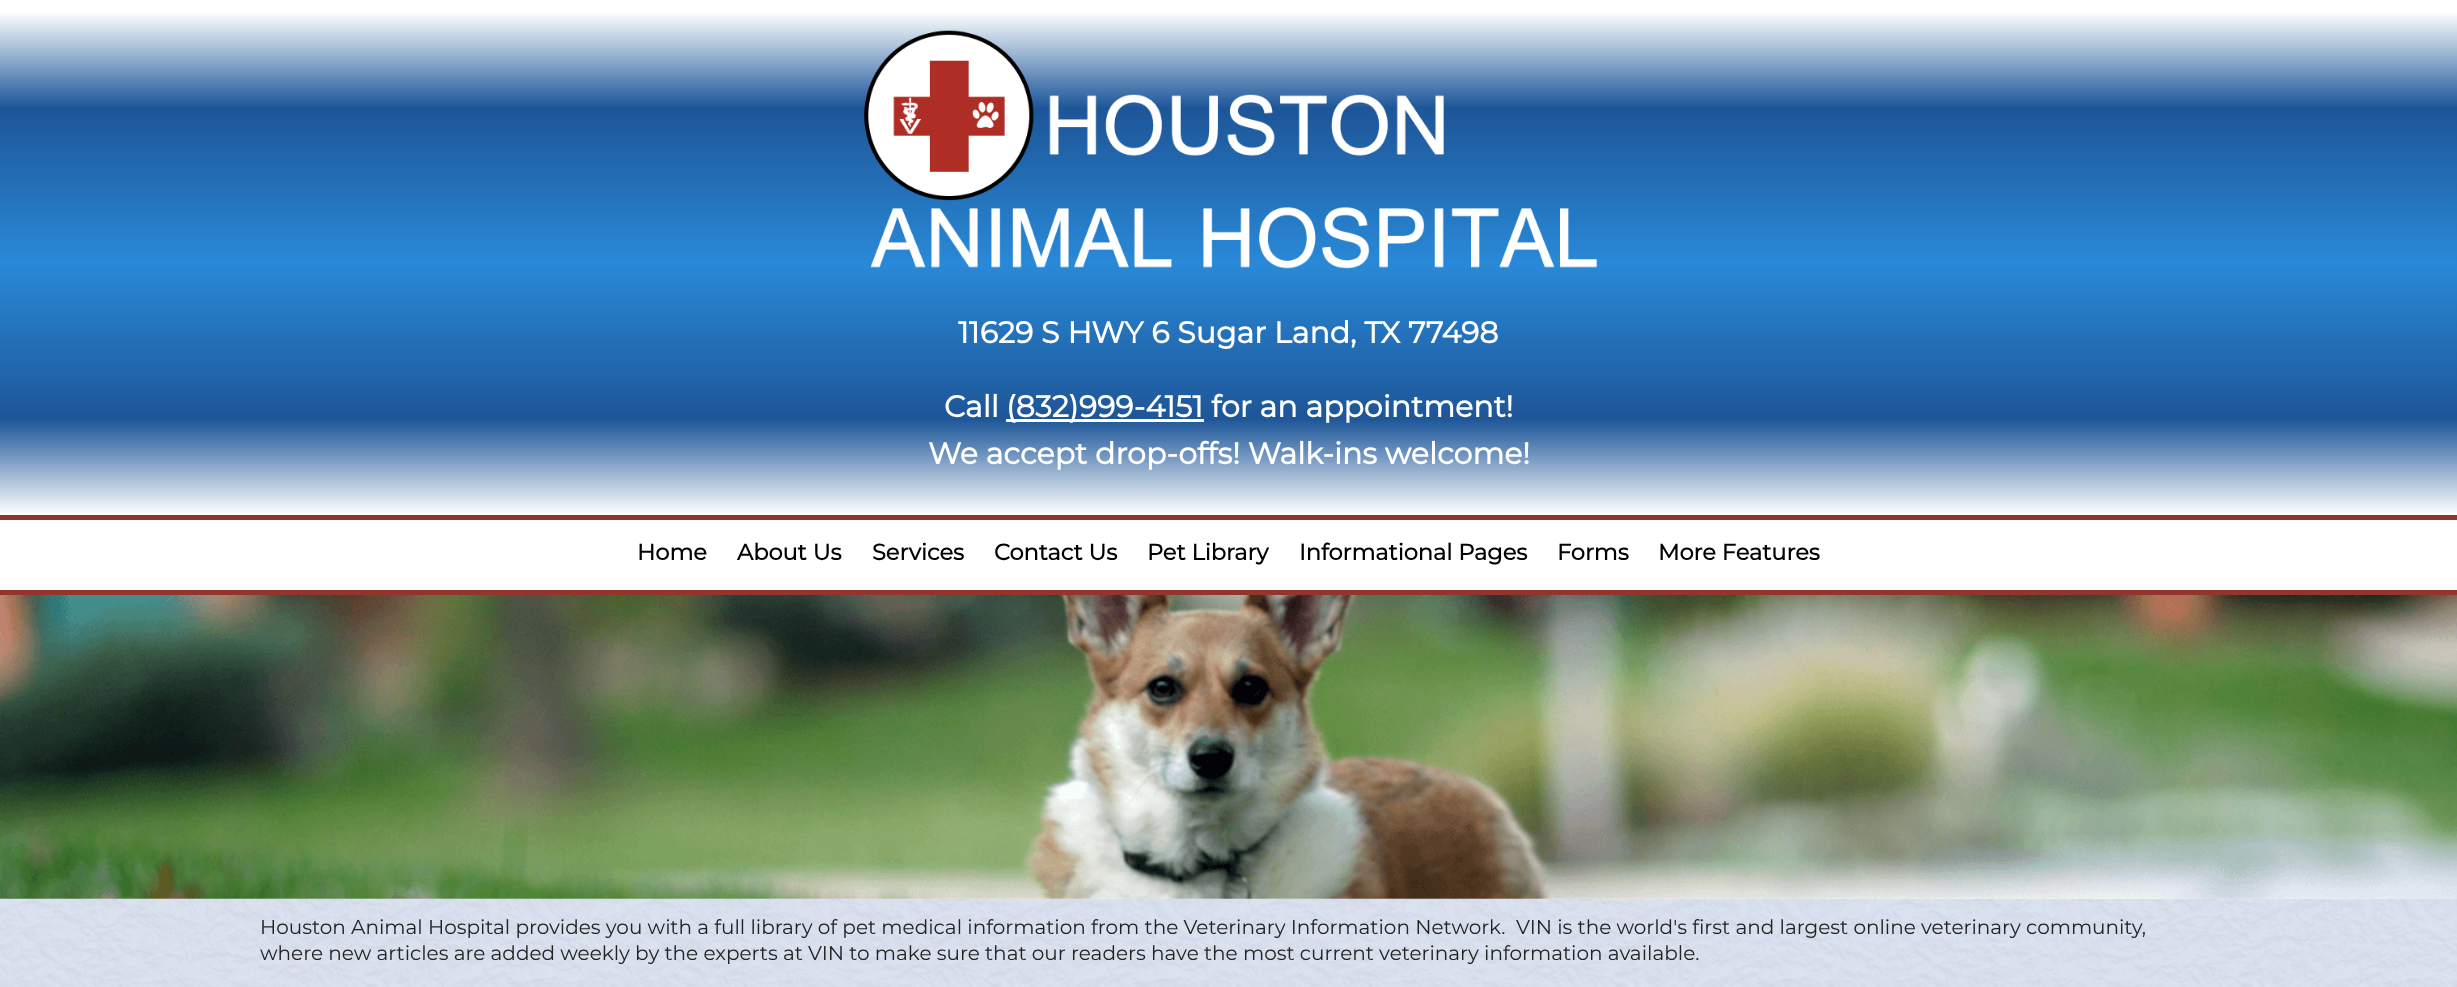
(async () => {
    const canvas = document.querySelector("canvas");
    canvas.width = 2457;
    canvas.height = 987;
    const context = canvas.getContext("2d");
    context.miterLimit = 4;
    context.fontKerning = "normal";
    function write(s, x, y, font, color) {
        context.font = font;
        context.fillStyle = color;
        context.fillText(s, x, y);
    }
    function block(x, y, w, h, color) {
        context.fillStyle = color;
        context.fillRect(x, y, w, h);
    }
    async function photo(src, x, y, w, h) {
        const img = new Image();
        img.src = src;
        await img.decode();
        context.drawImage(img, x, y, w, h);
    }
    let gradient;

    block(0, 0, 2457, 987, "rgb(255, 255, 255)");
    gradient = context.createLinearGradient(1229, 12, 1229, 515);
    gradient.addColorStop(0, "rgb(255, 255, 255)");
    gradient.addColorStop(0.15, "rgb(75, 121, 174)");
    gradient.addColorStop(0.19, "rgb(30, 87, 153)");
    gradient.addColorStop(0.2, "rgb(30, 87, 153)");
    gradient.addColorStop(0.5, "rgb(41, 137, 216)");
    gradient.addColorStop(0.8, "rgb(30, 87, 153)");
    gradient.addColorStop(0.81, "rgb(30, 87, 153)");
    gradient.addColorStop(0.85, "rgb(75, 121, 174)");
    gradient.addColorStop(1, "rgb(255, 255, 255)");
    context.fillStyle = gradient;
    context.fillRect(0, 13, 2457, 501);
    await photo("media/1.png", 864, 30, 734, 239);
    write("11629 S HWY 6 Sugar Land, TX 77498", 958, 343, "bold 30px Montserrat", "rgb(255, 255, 255)");
    write("Call", 944, 417, "bold 30px Montserrat", "rgb(255, 255, 255)");
    block(1006, 419, 198, 3, "rgb(255, 255, 255)");
    write("(832)999-4151 for an appointment!", 1006, 417, "bold 30px Montserrat", "rgb(255, 255, 255)");
    write("We accept drop-offs! Walk-ins welcome!", 928, 464, "bold 30px Montserrat", "rgb(255, 255, 255)");
    block(0, 515, 2457, 5, "rgb(146, 54, 45)");
    block(0, 590, 2457, 5, "rgb(146, 54, 45)");
    write("Home", 637, 560, "bold 22.5px Montserrat", "rgb(0, 0, 0)");
    write("About Us", 737, 560, "bold 22.5px Montserrat", "rgb(0, 0, 0)");
    write("Services", 872, 560, "bold 22.5px Montserrat", "rgb(0, 0, 0)");
    write("Contact Us", 994, 560, "bold 22.5px Montserrat", "rgb(0, 0, 0)");
    write("Pet Library", 1147, 560, "bold 22.5px Montserrat", "rgb(0, 0, 0)");
    write("Informational Pages", 1299, 560, "bold 22.5px Montserrat", "rgb(0, 0, 0)");
    write("Forms", 1557, 560, "bold 22.5px Montserrat", "rgb(0, 0, 0)");
    write("More Features", 1658, 560, "bold 22.5px Montserrat", "rgb(0, 0, 0)");
    await photo("media/3.png", 0, 898, 2457, 89);
    await photo("media/2.png", 0, 595, 2457, 304);
    write("Houston Animal Hospital provides you with a full library of pet medical information from the Veterinary Information Network.  VIN is the world's first and largest online veterinary community,", 260, 934, "100 20px Montserrat", "rgb(34, 34, 34)");
    write("where new articles are added weekly by the experts at VIN to make sure that our readers have the most current veterinary information available.", 260, 960, "100 20px Montserrat", "rgb(34, 34, 34)");
})();
